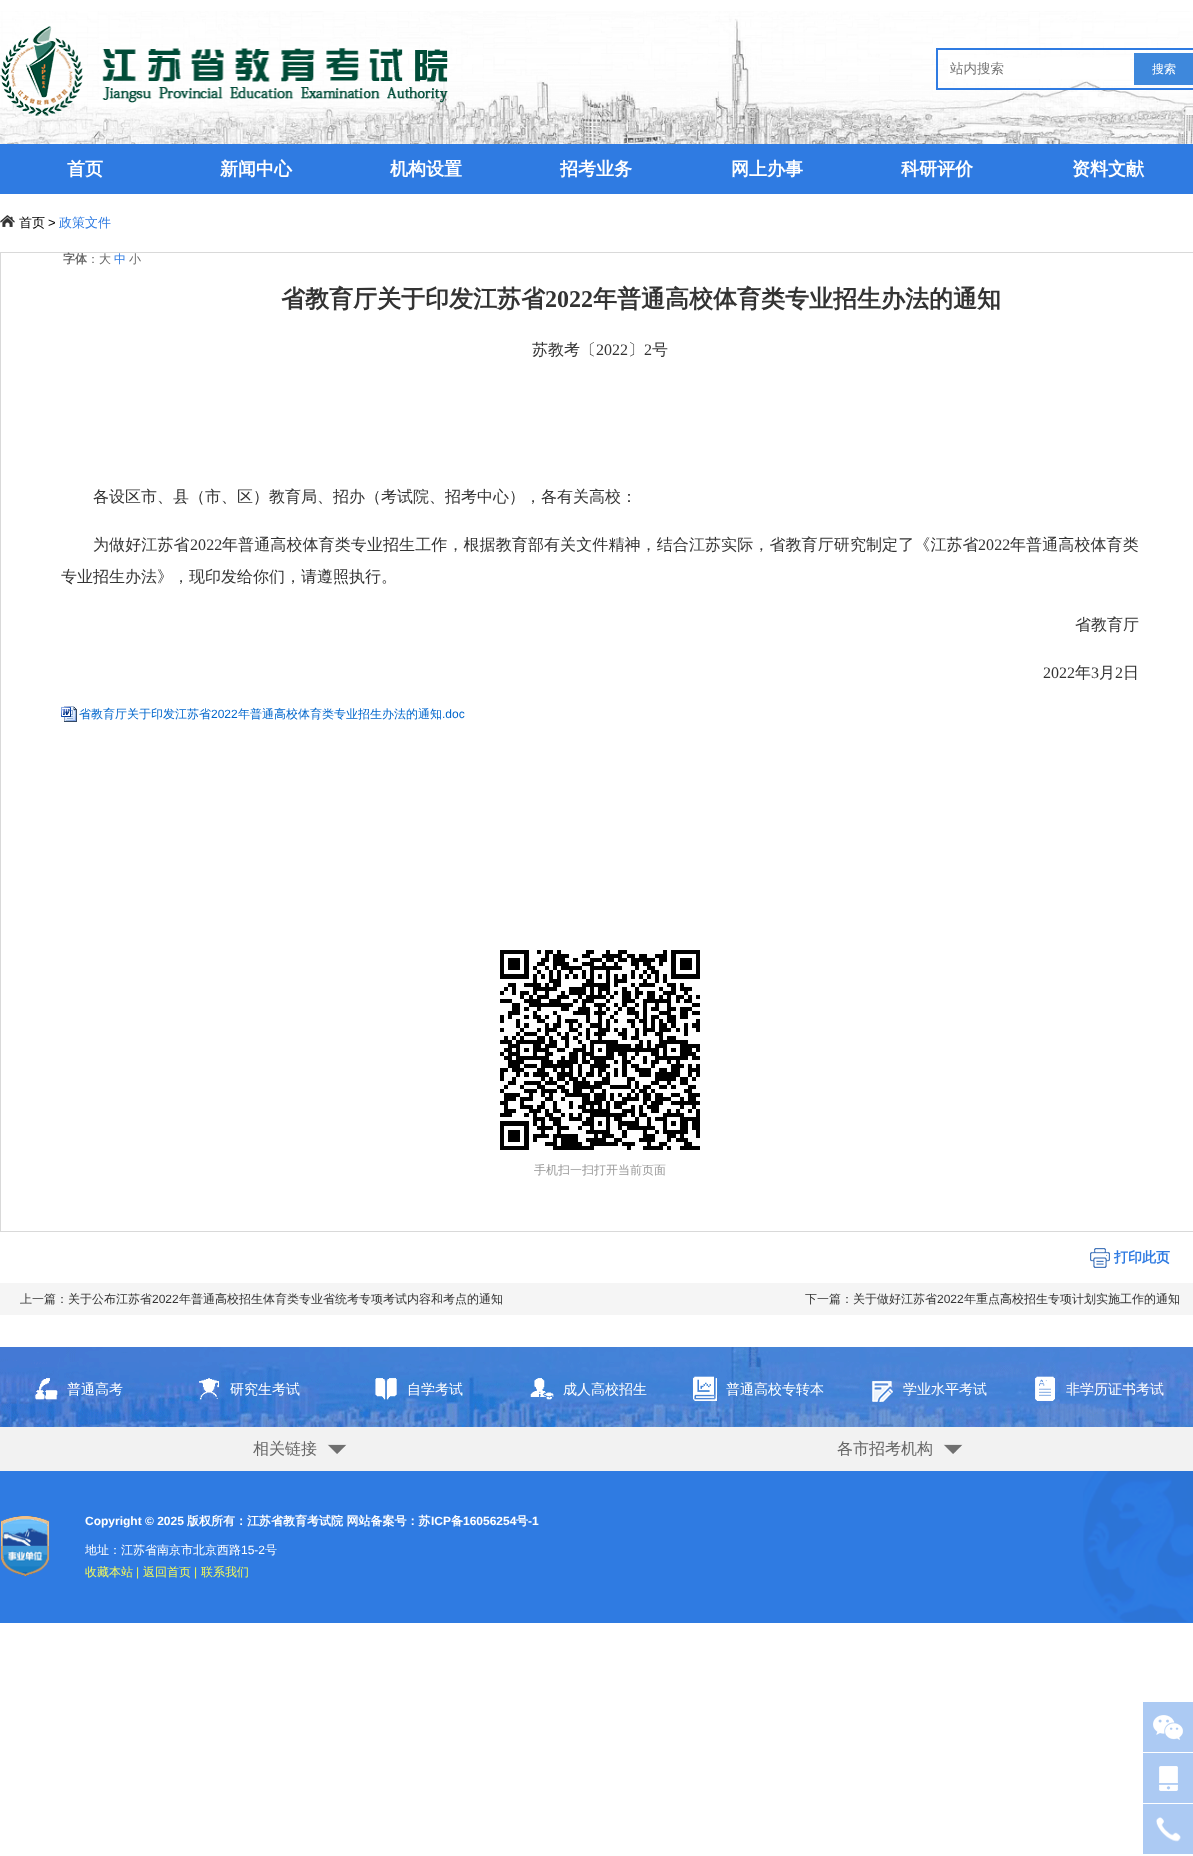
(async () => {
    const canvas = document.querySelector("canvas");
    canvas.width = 1193;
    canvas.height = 1856;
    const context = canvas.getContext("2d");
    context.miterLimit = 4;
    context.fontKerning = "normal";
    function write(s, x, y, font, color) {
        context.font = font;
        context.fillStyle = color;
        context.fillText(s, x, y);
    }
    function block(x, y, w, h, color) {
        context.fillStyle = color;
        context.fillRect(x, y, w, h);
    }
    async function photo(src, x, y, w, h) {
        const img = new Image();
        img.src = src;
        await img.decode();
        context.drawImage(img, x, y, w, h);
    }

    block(0, 0, 1193, 1856, "rgb(255, 255, 255)");
    await photo("media/1.png", 0, 11, 1193, 133);
    await photo("media/2.png", 0, 26, 448, 90);
    context.strokeStyle = "rgb(47, 123, 226)";
    context.lineWidth = 2;
    context.strokeRect(937, 49, 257, 40);
    block(948, 58, 182, 21, "rgb(255, 255, 255)");
    write("站内搜索", 950, 73, "500 13.5px WenQuanYi Zen Hei", "rgb(117, 117, 117)");
    block(1134, 53, 59, 32, "rgb(62, 136, 220)");
    write("搜索", 1152, 73, "500 12px WenQuanYi Zen Hei", "rgb(255, 255, 255)");
    block(0, 144, 1193, 50, "rgb(47, 123, 226)");
    write("首页", 67, 175, "bold 18px WenQuanYi Zen Hei", "rgb(255, 255, 255)");
    write("新闻中心", 220, 175, "bold 18px WenQuanYi Zen Hei", "rgb(255, 255, 255)");
    write("机构设置", 390, 175, "bold 18px WenQuanYi Zen Hei", "rgb(255, 255, 255)");
    write("招考业务", 560, 175, "bold 18px WenQuanYi Zen Hei", "rgb(255, 255, 255)");
    write("网上办事", 731, 175, "bold 18px WenQuanYi Zen Hei", "rgb(255, 255, 255)");
    write("科研评价", 901, 175, "bold 18px WenQuanYi Zen Hei", "rgb(255, 255, 255)");
    write("资料文献", 1072, 175, "bold 18px WenQuanYi Zen Hei", "rgb(255, 255, 255)");
    await photo("media/3.png", 0, 215, 15, 12);
    write("首页", 19, 227, "500 13px WenQuanYi Zen Hei", "rgb(0, 0, 0)");
    write(">", 48, 227, "13px Liberation Sans", "rgb(0, 0, 0)");
    write("政策文件", 59, 227, "500 13px WenQuanYi Zen Hei", "rgb(47, 123, 226)");
    context.strokeStyle = "rgb(217, 217, 217)";
    context.lineWidth = 1;
    context.strokeRect(0.5, 252.5, 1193, 979);
    write("字体", 63, 263, "bold 12px WenQuanYi Zen Hei", "rgb(102, 102, 102)");
    write("：大", 87, 263, "500 12px WenQuanYi Zen Hei", "rgb(102, 102, 102)");
    write("中", 114, 263, "500 12px WenQuanYi Zen Hei", "rgb(47, 123, 226)");
    write("小", 129, 263, "500 12px WenQuanYi Zen Hei", "rgb(102, 102, 102)");
    write("省教育厅关于印发江苏省", 281, 307, "bold 24px WenQuanYi Zen Hei", "rgb(51, 51, 51)");
    write("2022", 545, 307, "bold 24px Liberation Serif", "rgb(51, 51, 51)");
    write("年普通高校体育类专业招生办法的通知", 593, 307, "bold 24px WenQuanYi Zen Hei", "rgb(51, 51, 51)");
    write("苏教考〔", 532, 355, "500 16px WenQuanYi Zen Hei", "rgb(51, 51, 51)");
    write("2022", 596, 355, "16px Liberation Serif", "rgb(51, 51, 51)");
    write("〕", 628, 355, "500 16px WenQuanYi Zen Hei", "rgb(51, 51, 51)");
    write("2", 644, 355, "16px Liberation Serif", "rgb(51, 51, 51)");
    write("号", 652, 355, "500 16px WenQuanYi Zen Hei", "rgb(51, 51, 51)");
    write("各设区市、县（市、区）教育局、招办（考试院、招考中心），各有关高校：", 93, 502, "500 16px WenQuanYi Zen Hei", "rgb(51, 51, 51)");
    context.letterSpacing = "0.1px";
    write("为做好江苏省", 93, 550, "500 16px WenQuanYi Zen Hei", "rgb(51, 51, 51)");
    write("2022", 190, 550, "16px Liberation Serif", "rgb(51, 51, 51)");
    write("年普通高校体育类专业招生工作，根据教育部有关文件精神，结合江苏实际，省教育厅研究制定了《江苏省", 222, 550, "500 16px WenQuanYi Zen Hei", "rgb(51, 51, 51)");
    write("2022", 978, 550, "16px Liberation Serif", "rgb(51, 51, 51)");
    write("年普通高校体育类", 1010, 550, "500 16px WenQuanYi Zen Hei", "rgb(51, 51, 51)");
    context.letterSpacing = "0px";
    write("专业招生办法》，现印发给你们，请遵照执行。", 61, 582, "500 16px WenQuanYi Zen Hei", "rgb(51, 51, 51)");
    write("省教育厅", 1075, 630, "500 16px WenQuanYi Zen Hei", "rgb(51, 51, 51)");
    write("2022", 1043, 678, "16px Liberation Serif", "rgb(51, 51, 51)");
    write("年", 1075, 678, "500 16px WenQuanYi Zen Hei", "rgb(51, 51, 51)");
    write("3", 1091, 678, "16px Liberation Serif", "rgb(51, 51, 51)");
    write("月", 1099, 678, "500 16px WenQuanYi Zen Hei", "rgb(51, 51, 51)");
    write("2", 1115, 678, "16px Liberation Serif", "rgb(51, 51, 51)");
    write("日", 1123, 678, "500 16px WenQuanYi Zen Hei", "rgb(51, 51, 51)");
    await photo("media/4.png", 61, 706, 16, 16);
    write("省教育厅关于印发江苏省", 79, 718, "500 12px WenQuanYi Zen Hei", "rgb(0, 102, 204)");
    write("2022", 211, 718, "12px Liberation Sans", "rgb(0, 102, 204)");
    write("年普通高校体育类专业招生办法的通知", 238, 718, "500 12px WenQuanYi Zen Hei", "rgb(0, 102, 204)");
    write(".doc", 442, 718, "12px Liberation Sans", "rgb(0, 102, 204)");
    await photo("media/5.png", 500, 950, 200, 200);
    write("手机扫一扫打开当前页面", 534, 1174, "500 12px WenQuanYi Zen Hei", "rgb(153, 153, 153)");
    await photo("media/6.png", 1090, 1248, 20, 20);
    write("打印此页", 1114, 1262, "bold 14px WenQuanYi Zen Hei", "rgb(47, 123, 226)");
    block(0, 1283, 1193, 32, "rgb(245, 245, 245)");
    write("上一篇：关于公布江苏省", 20, 1303, "500 12px WenQuanYi Zen Hei", "rgb(51, 51, 51)");
    write("2022", 152, 1303, "12px Liberation Sans", "rgb(51, 51, 51)");
    write("年普通高校招生体育类专业省统考专项考试内容和考点的通知", 179, 1303, "500 12px WenQuanYi Zen Hei", "rgb(51, 51, 51)");
    write("下一篇：关于做好江苏省", 805, 1303, "500 12px WenQuanYi Zen Hei", "rgb(51, 51, 51)");
    write("2022", 937, 1303, "12px Liberation Sans", "rgb(51, 51, 51)");
    write("年重点高校招生专项计划实施工作的通知", 964, 1303, "500 12px WenQuanYi Zen Hei", "rgb(51, 51, 51)");
    await photo("media/7.png", 0, 1347, 1193, 80);
    await photo("media/8.png", 35, 1378, 23, 22);
    write("普通高考", 67, 1394, "500 14px WenQuanYi Zen Hei", "rgb(255, 255, 255)");
    await photo("media/9.png", 199, 1378, 20, 22);
    write("研究生考试", 230, 1394, "500 14px WenQuanYi Zen Hei", "rgb(255, 255, 255)");
    await photo("media/10.png", 375, 1378, 22, 22);
    write("自学考试", 407, 1394, "500 14px WenQuanYi Zen Hei", "rgb(255, 255, 255)");
    await photo("media/11.png", 530, 1378, 24, 22);
    write("成人高校招生", 563, 1394, "500 14px WenQuanYi Zen Hei", "rgb(255, 255, 255)");
    await photo("media/12.png", 693, 1376, 24, 25);
    write("普通高校专转本", 726, 1394, "500 14px WenQuanYi Zen Hei", "rgb(255, 255, 255)");
    await photo("media/13.png", 872, 1381, 21, 21);
    write("学业水平考试", 903, 1394, "500 14px WenQuanYi Zen Hei", "rgb(255, 255, 255)");
    await photo("media/14.png", 1035, 1376, 20, 25);
    write("非学历证书考试", 1066, 1394, "500 14px WenQuanYi Zen Hei", "rgb(255, 255, 255)");
    block(0, 1471, 1193, 152, "rgb(47, 123, 226)");
    await photo("media/15.png", 1083, 1471, 110, 151);
    block(0, 1427, 1193, 44, "rgb(242, 242, 242)");
    await photo("media/16.png", 327, 1444, 20, 10);
    write("相关链接", 253, 1454, "500 16px WenQuanYi Zen Hei", "rgb(102, 102, 102)");
    await photo("media/17.png", 943, 1444, 20, 10);
    write("各市招考机构", 837, 1454, "500 16px WenQuanYi Zen Hei", "rgb(102, 102, 102)");
    await photo("media/18.png", 1, 1516, 49, 61);
    write("Copyright © 2025", 85, 1525, "bold 12px Liberation Sans", "rgb(255, 255, 255)");
    write("版权所有：江苏省教育考试院 网站备案号：苏", 187, 1525, "bold 12px WenQuanYi Zen Hei", "rgb(255, 255, 255)");
    write("ICP", 431, 1525, "bold 12px Liberation Sans", "rgb(255, 255, 255)");
    write("备", 451, 1525, "bold 12px WenQuanYi Zen Hei", "rgb(255, 255, 255)");
    write("16056254", 463, 1525, "bold 12px Liberation Sans", "rgb(255, 255, 255)");
    write("号", 516, 1525, "bold 12px WenQuanYi Zen Hei", "rgb(255, 255, 255)");
    write("-1", 528, 1525, "bold 12px Liberation Sans", "rgb(255, 255, 255)");
    write("地址：江苏省南京市北京西路", 85, 1554, "500 12px WenQuanYi Zen Hei", "rgb(255, 255, 255)");
    write("15-2", 241, 1554, "12px Liberation Sans", "rgb(255, 255, 255)");
    write("号", 265, 1554, "500 12px WenQuanYi Zen Hei", "rgb(255, 255, 255)");
    write("收藏本站", 85, 1576, "500 12px WenQuanYi Zen Hei", "rgb(243, 249, 91)");
    write("|", 136, 1576, "12px Liberation Sans", "rgb(243, 249, 91)");
    write("返回首页", 143, 1576, "500 12px WenQuanYi Zen Hei", "rgb(243, 249, 91)");
    write("|", 194, 1576, "12px Liberation Sans", "rgb(243, 249, 91)");
    write("联系我们", 201, 1576, "500 12px WenQuanYi Zen Hei", "rgb(243, 249, 91)");
    block(1143, 1702, 50, 50, "rgb(172, 202, 243)");
    await photo("media/19.png", 1153, 1715, 30, 25);
    block(1143, 1753, 50, 50, "rgb(172, 202, 243)");
    await photo("media/20.png", 1159, 1766, 19, 25);
    block(1143, 1804, 50, 50, "rgb(172, 202, 243)");
    await photo("media/21.png", 1156, 1817, 25, 25);
})();
